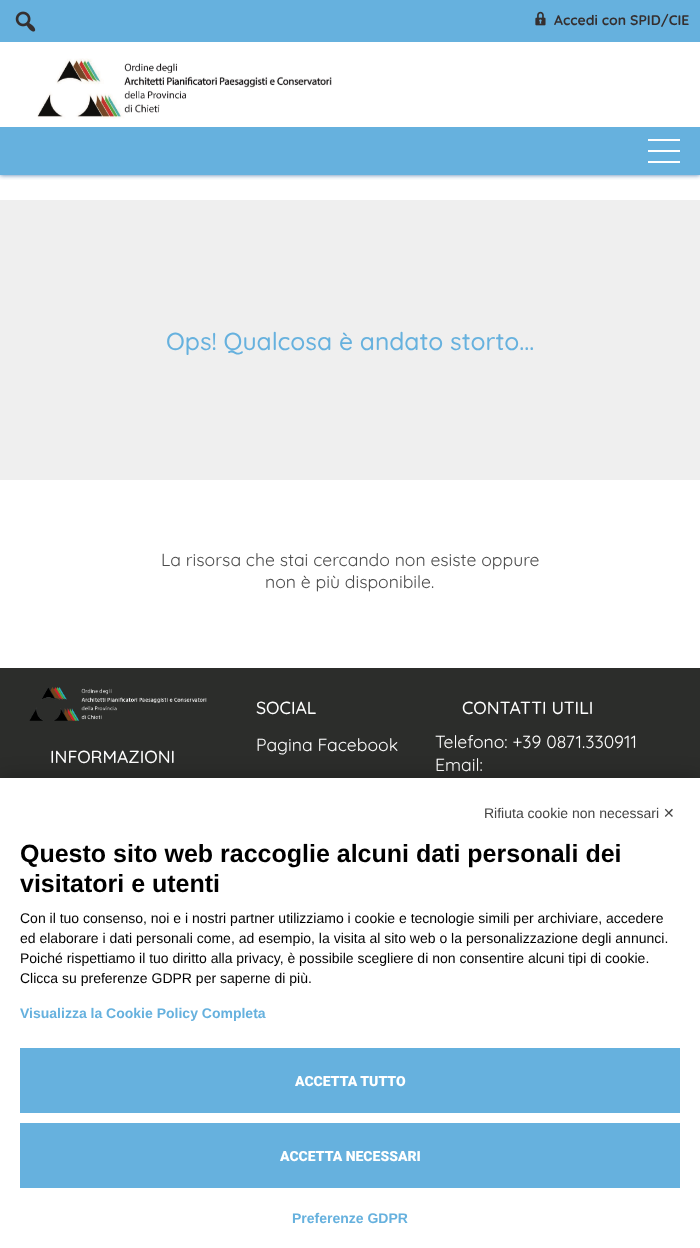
(async () => {
    const canvas = document.querySelector("canvas");
    canvas.width = 700;
    canvas.height = 1248;
    const context = canvas.getContext("2d");
    context.miterLimit = 4;
    context.fontKerning = "normal";
    function write(s, x, y, font, color) {
        context.font = font;
        context.fillStyle = color;
        context.fillText(s, x, y);
    }
    function block(x, y, w, h, color) {
        context.fillStyle = color;
        context.fillRect(x, y, w, h);
    }
    async function photo(src, x, y, w, h) {
        const img = new Image();
        img.src = src;
        await img.decode();
        context.drawImage(img, x, y, w, h);
    }

    block(0, 0, 700, 1248, "rgb(255, 255, 255)");
    context.save();
    context.beginPath();
    context.rect(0, 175, 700, 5);
    context.clip();
    context.fillStyle = "rgb(77, 122, 170)";
    context.filter = "blur(2.5px)";
    context.beginPath();
    context.rect(0, 0, 700, 175);
    context.fill();
    context.filter = "none";
    context.restore();
    block(0, 0, 700, 42, "rgb(102, 177, 222)");
    await photo("media/1.png", 15, 11, 21, 21);
    await photo("media/2.png", 535, 11, 11, 15);
    write("Accedi con SPID/CIE", 554, 25, "bold 14px Quicksand", "rgb(53, 47, 47)");
    await photo("media/3.png", 37, 58, 295, 61);
    block(0, 127, 700, 48, "rgb(102, 177, 222)");
    block(648, 139, 32, 2, "rgb(255, 255, 255)");
    block(648, 150, 32, 2, "rgb(255, 255, 255)");
    block(648, 161, 32, 2, "rgb(255, 255, 255)");
    block(0, 200, 700, 280, "rgb(239, 239, 239)");
    write("Ops! Qualcosa è andato storto...", 166, 350, "500 24.6px Quicksand", "rgb(102, 177, 222)");
    write("La risorsa che stai cercando non esiste oppure", 161, 566, "17.6px Quicksand", "rgb(76, 76, 76)");
    write("non è più disponibile.", 265, 588, "17.6px Quicksand", "rgb(76, 76, 76)");
    block(0, 668, 700, 110, "rgb(44, 45, 43)");
    await photo("media/4.png", 29, 687, 178, 34);
    write("INFORMAZIONI", 50, 763, "500 17.6px Quicksand", "rgb(255, 255, 255)");
    write("SOCIAL", 256, 714, "500 17.6px Quicksand", "rgb(255, 255, 255)");
    write("Pagina Facebook", 256, 751, "17.6px Quicksand", "rgb(255, 255, 255)");
    write("CONTATTI UTILI", 462, 714, "500 17.6px Quicksand", "rgb(255, 255, 255)");
    write("Telefono: +39 0871.330911", 435, 748, "17.6px Quicksand", "rgb(255, 255, 255)");
    write("Email:", 435, 771, "17.6px Quicksand", "rgb(255, 255, 255)");
    context.fillStyle = "rgba(0, 0, 0, 0.27)";
    context.filter = "blur(10px)";
    context.beginPath();
    context.rect(0, 778, 700, 470);
    context.fill();
    context.filter = "none";
    block(0, 778, 700, 470, "rgb(255, 255, 255)");
    write("Rifiuta cookie non necessari", 484, 818, "14px Liberation Sans", "rgb(68, 68, 68)");
    write("✕", 663, 818, "14px DejaVu Sans", "rgb(68, 68, 68)");
    write("Questo sito web raccoglie alcuni dati personali dei", 20, 862, "bold 25px Liberation Sans", "rgb(0, 0, 0)");
    write("visitatori e utenti", 20, 892, "bold 25px Liberation Sans", "rgb(0, 0, 0)");
    write("Con il tuo consenso, noi e i nostri partner utilizziamo i cookie e tecnologie simili per archiviare, accedere", 20, 923, "14px Liberation Sans", "rgb(0, 0, 0)");
    write("ed elaborare i dati personali come, ad esempio, la visita al sito web o la personalizzazione degli annunci.", 20, 943, "14px Liberation Sans", "rgb(0, 0, 0)");
    write("Poiché rispettiamo il tuo diritto alla privacy, è possibile scegliere di non consentire alcuni tipi di cookie.", 20, 963, "14px Liberation Sans", "rgb(0, 0, 0)");
    write("Clicca su preferenze GDPR per saperne di più.", 20, 983, "14px Liberation Sans", "rgb(0, 0, 0)");
    write("Visualizza la Cookie Policy Completa", 20, 1018, "bold 14px Liberation Sans", "rgb(102, 177, 222)");
    block(20, 1048, 660, 65, "rgb(102, 177, 222)");
    write("ACCETTA TUTTO", 295, 1086, "900 14px Roboto", "rgb(255, 255, 255)");
    block(20, 1123, 660, 65, "rgb(102, 177, 222)");
    write("ACCETTA NECESSARI", 280, 1161, "900 14px Roboto", "rgb(255, 255, 255)");
    write("Preferenze GDPR", 292, 1223, "bold 14px Liberation Sans", "rgb(102, 177, 222)");
})();
